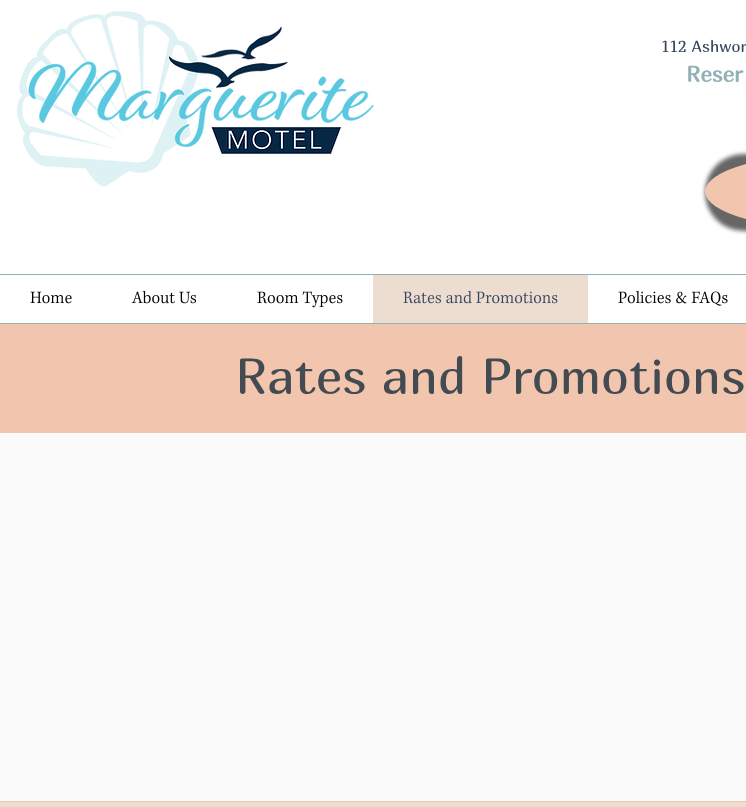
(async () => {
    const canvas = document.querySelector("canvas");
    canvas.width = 746;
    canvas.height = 807;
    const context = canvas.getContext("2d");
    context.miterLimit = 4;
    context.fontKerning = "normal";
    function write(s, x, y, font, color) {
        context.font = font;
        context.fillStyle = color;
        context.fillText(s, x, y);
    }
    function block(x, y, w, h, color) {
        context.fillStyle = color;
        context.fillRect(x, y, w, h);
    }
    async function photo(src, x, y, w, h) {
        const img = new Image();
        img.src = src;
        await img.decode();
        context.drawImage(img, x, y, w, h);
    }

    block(0, 0, 746, 807, "rgb(241, 197, 174)");
    block(0, 0, 746, 323, "rgb(255, 255, 255)");
    await photo("media/1.png", 17, 11, 357, 176);
    write("112 Ashwor", 661, 52, "16px Marmelad", "rgb(53, 69, 93)");
    write("Reser", 686, 82, "bold 22px Marmelad", "rgb(146, 177, 182)");
    context.fillStyle = "rgba(0, 0, 0, 0.6)";
    context.filter = "blur(2px)";
    context.beginPath();
    context.roundRect(705, 154, 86, 77, 38.5);
    context.fill();
    context.filter = "none";
    context.fillStyle = "rgb(241, 197, 174)";
    context.beginPath();
    context.ellipse(842, 191.5, 137, 38.5, 0, 0, Math.PI * 2);
    context.fill();
    block(0, 274, 746, 1, "rgb(146, 177, 182)");
    block(0, 323, 746, 1, "rgb(146, 177, 182)");
    await photo("media/2.png", 30, 291, 42, 13);
    await photo("media/3.png", 131, 291, 66, 13);
    await photo("media/4.png", 257, 291, 86, 17);
    block(373, 275, 215, 48, "rgb(236, 221, 208)");
    await photo("media/5.png", 403, 290, 155, 14);
    await photo("media/6.png", 618, 291, 110, 15);
    write("Rates and Promotions", 235, 394, "50px Marmelad", "rgb(68, 74, 81)");
    block(0, 433, 746, 368, "rgb(250, 250, 250)");
    block(0, 802, 746, 5, "rgb(236, 221, 208)");
})();
